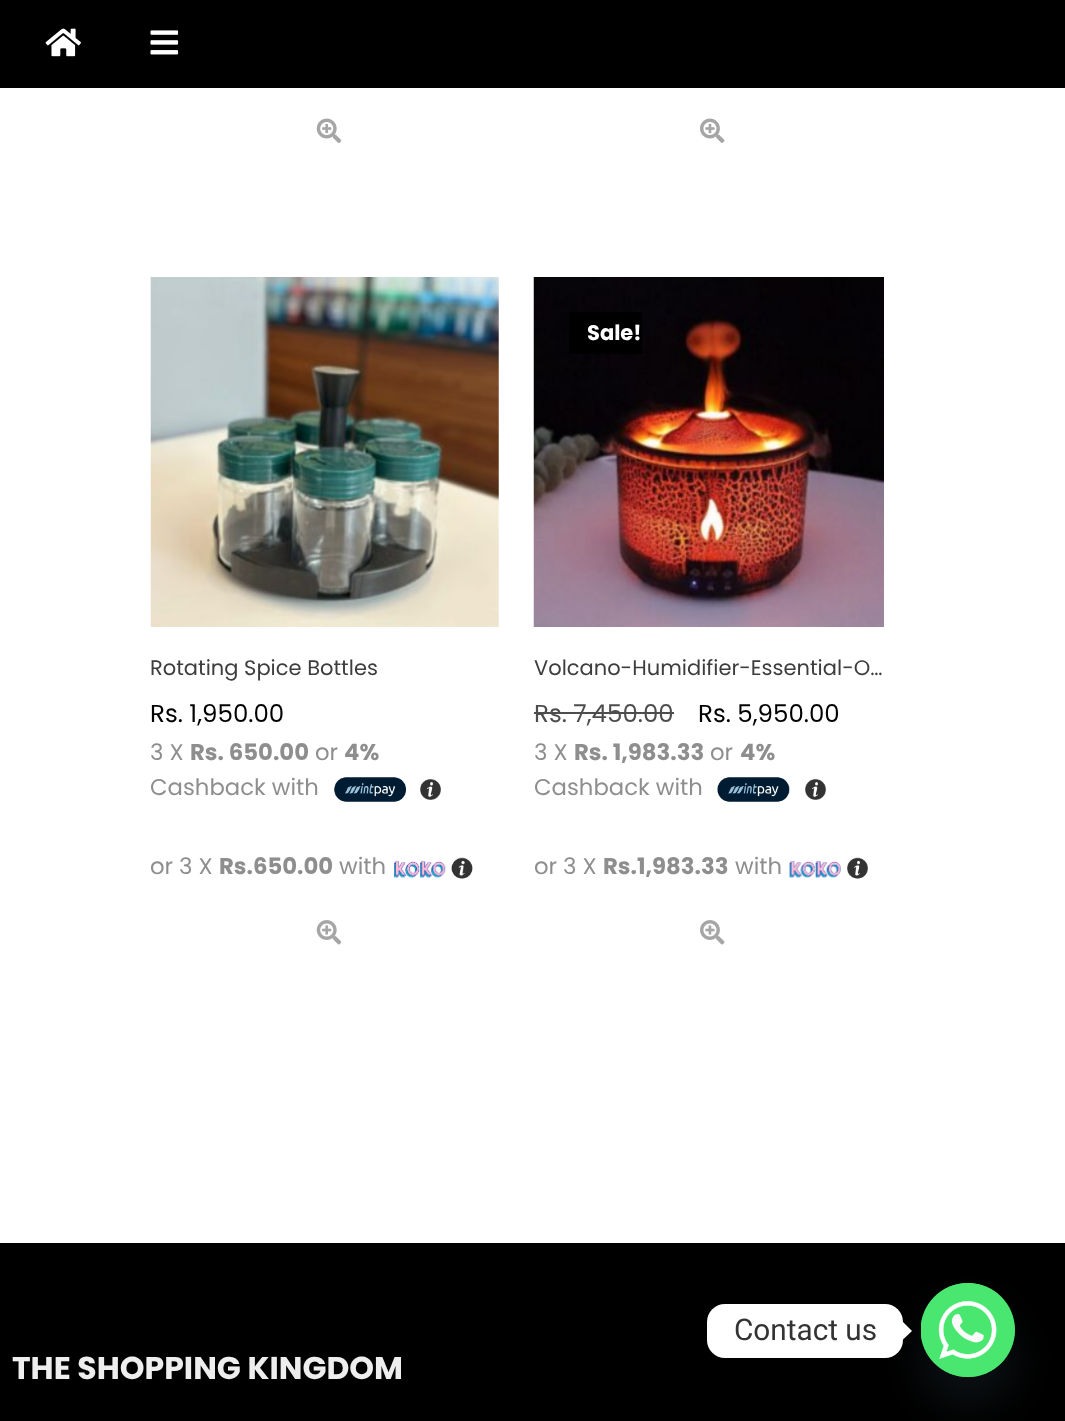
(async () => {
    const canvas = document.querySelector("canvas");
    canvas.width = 1065;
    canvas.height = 1421;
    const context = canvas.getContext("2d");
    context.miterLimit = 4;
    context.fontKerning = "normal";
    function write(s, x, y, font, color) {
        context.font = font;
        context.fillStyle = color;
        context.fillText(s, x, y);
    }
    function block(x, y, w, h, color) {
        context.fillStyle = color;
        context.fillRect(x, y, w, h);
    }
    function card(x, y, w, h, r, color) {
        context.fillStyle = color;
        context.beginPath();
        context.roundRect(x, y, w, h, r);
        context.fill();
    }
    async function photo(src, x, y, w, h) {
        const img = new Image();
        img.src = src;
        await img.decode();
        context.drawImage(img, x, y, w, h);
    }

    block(0, 0, 1065, 1421, "rgb(255, 255, 255)");
    block(0, 0, 1065, 88, "rgb(0, 0, 0)");
    await photo("media/1.png", 45, 28, 36, 29);
    await photo("media/2.png", 150, 30, 29, 25);
    await photo("media/3.png", 316, 118, 26, 25);
    await photo("media/4.png", 700, 118, 25, 25);
    await photo("media/5.png", 150, 277, 349, 350);
    write("Rotating Spice Bottles", 150, 675, "21px Poppins", "rgb(61, 61, 61)");
    write("Rs. 1,950.00", 150, 722, "24.5px Poppins", "rgb(0, 0, 0)");
    write("3 X", 150, 760, "22.75px Poppins", "rgb(142, 142, 142)");
    write("Rs. 650.00", 190, 760, "bold 22.75px Poppins", "rgb(142, 142, 142)");
    write("or", 315, 760, "22.75px Poppins", "rgb(142, 142, 142)");
    write("4%", 344, 760, "bold 22.75px Poppins", "rgb(142, 142, 142)");
    write("Cashback with", 150, 795, "22.75px Poppins", "rgb(142, 142, 142)");
    await photo("media/6.png", 334, 777, 72, 25);
    await photo("media/7.png", 420, 779, 21, 21);
    write("or 3 X", 150, 874, "22.75px Poppins", "rgb(142, 142, 142)");
    write("Rs.650.00", 219, 874, "bold 22.75px Poppins", "rgb(142, 142, 142)");
    write("with", 339, 874, "22.75px Poppins", "rgb(142, 142, 142)");
    await photo("media/8.png", 394, 860, 52, 18);
    await photo("media/9.png", 451, 857, 22, 22);
    await photo("media/10.png", 316, 920, 26, 25);
    await photo("media/11.png", 533, 277, 351, 350);
    block(569, 312, 73, 42, "rgb(0, 0, 0)");
    write("Sale!", 587, 340, "bold 21px Poppins", "rgb(255, 255, 255)");
    write("Volcano-Humidifier-Essential-O…", 534, 675, "21px Poppins", "rgb(61, 61, 61)");
    write("Rs. 7,450.00", 534, 722, "24.5px Poppins", "rgb(77, 77, 77)");
    block(534, 712, 140, 2, "rgb(77, 77, 77)");
    write("Rs. 5,950.00", 698, 722, "24.5px Poppins", "rgb(0, 0, 0)");
    write("3 X", 534, 760, "22.75px Poppins", "rgb(142, 142, 142)");
    write("Rs. 1,983.33", 574, 760, "bold 22.75px Poppins", "rgb(142, 142, 142)");
    write("or", 710, 760, "22.75px Poppins", "rgb(142, 142, 142)");
    write("4%", 740, 760, "bold 22.75px Poppins", "rgb(142, 142, 142)");
    write("Cashback with", 534, 795, "22.75px Poppins", "rgb(142, 142, 142)");
    await photo("media/12.png", 717, 777, 73, 25);
    await photo("media/7.png", 805, 779, 21, 21);
    write("or 3 X", 534, 874, "22.75px Poppins", "rgb(142, 142, 142)");
    write("Rs.1,983.33", 603, 874, "bold 22.75px Poppins", "rgb(142, 142, 142)");
    write("with", 735, 874, "22.75px Poppins", "rgb(142, 142, 142)");
    await photo("media/13.png", 789, 860, 52, 18);
    await photo("media/14.png", 847, 857, 21, 22);
    await photo("media/15.png", 700, 920, 25, 25);
    block(0, 1243, 1065, 178, "rgb(0, 0, 0)");
    write("THE SHOPPING KINGDOM", 12, 1379, "bold 31.5px Poppins", "rgb(238, 238, 238)");
    context.fillStyle = "rgba(73, 104, 126, 0.16)";
    context.filter = "blur(21px)";
    context.beginPath();
    context.roundRect(921, 1311, 94, 94, 47);
    context.fill();
    context.filter = "none";
    card(707, 1304, 196, 54, 18, "rgb(255, 255, 255)");
    write("Contact us", 734, 1340, "29.75px Roboto", "rgb(51, 51, 51)");
    context.fillStyle = "rgb(255, 255, 255)";
    context.beginPath();
    context.moveTo(903, 1339.5);
    context.lineTo(903, 1322);
    context.lineTo(912, 1331);
    context.closePath();
    context.fill();
    context.fillStyle = "rgb(73, 230, 112)";
    context.beginPath();
    context.arc(968, 1330, 47, 0, Math.PI * 2);
    context.fill();
    await photo("media/16.png", 921, 1283, 94, 94);
})();
